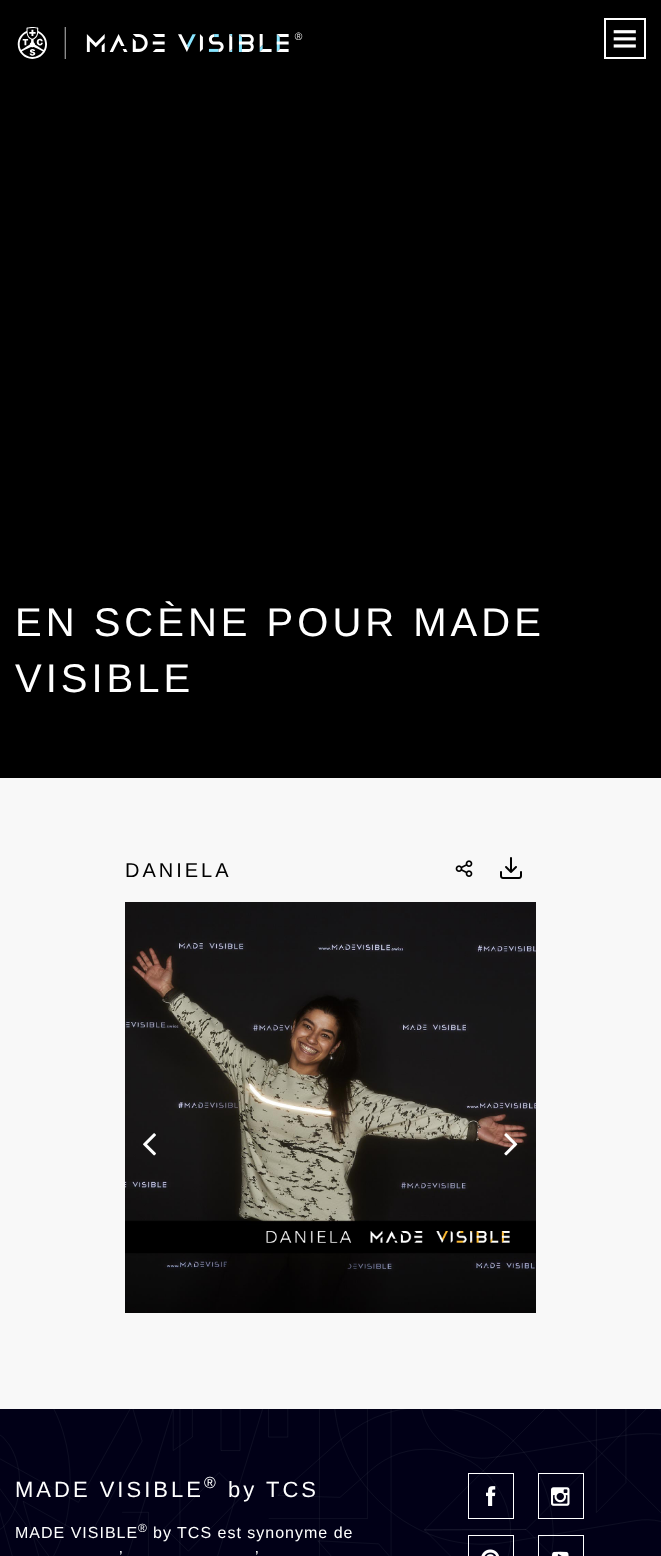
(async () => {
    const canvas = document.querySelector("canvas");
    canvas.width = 661;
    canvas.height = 1556;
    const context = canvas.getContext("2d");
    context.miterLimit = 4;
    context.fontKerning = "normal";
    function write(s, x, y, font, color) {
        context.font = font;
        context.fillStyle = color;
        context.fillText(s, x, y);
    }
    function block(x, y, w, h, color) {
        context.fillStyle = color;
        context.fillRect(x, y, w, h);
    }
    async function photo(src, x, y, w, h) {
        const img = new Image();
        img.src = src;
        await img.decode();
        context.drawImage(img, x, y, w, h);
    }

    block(0, 0, 661, 1556, "rgb(0, 0, 0)");
    await photo("media/1.png", 17, 27, 286, 32);
    context.strokeStyle = "rgb(255, 255, 255)";
    context.lineWidth = 2;
    context.strokeRect(605, 19, 40, 39);
    await photo("media/2.png", 613, 30, 23, 18);
    context.letterSpacing = "4px";
    write("EN SCÈNE POUR MADE", 15, 636, "40px Liberation Sans", "rgb(255, 255, 255)");
    write("VISIBLE", 15, 692, "40px Liberation Sans", "rgb(255, 255, 255)");
    block(0, 778, 661, 631, "rgb(248, 248, 248)");
    context.letterSpacing = "3px";
    write("DANIELA", 125, 877, "20px Liberation Sans", "rgb(0, 0, 0)");
    await photo("media/3.png", 455, 860, 18, 17);
    await photo("media/4.png", 500, 857, 22, 22);
    await photo("media/5.png", 125, 902, 411, 411);
    await photo("media/6.png", 143, 1133, 13, 23);
    await photo("media/7.png", 504, 1133, 14, 23);
    block(0, 1409, 661, 147, "rgb(1, 0, 23)");
    await photo("media/8.png", 0, 1409, 661, 147);
    write("MADE VISIBLE", 15, 1497, "22px Liberation Sans", "rgb(255, 255, 255)");
    write("®", 204, 1488, "16px Liberation Sans", "rgb(255, 255, 255)");
    write("by TCS", 228, 1497, "22px Liberation Sans", "rgb(255, 255, 255)");
    context.letterSpacing = "1px";
    write("MADE VISIBLE", 15, 1538, "16px Liberation Sans", "rgb(255, 255, 255)");
    write("®", 138, 1532, "12px Liberation Sans", "rgb(255, 255, 255)");
    write("by TCS est synonyme de", 153, 1538, "16px Liberation Sans", "rgb(255, 255, 255)");
    write("’", 119, 1562, "16px Liberation Sans", "rgb(255, 255, 255)");
    write("’", 255, 1562, "16px Liberation Sans", "rgb(255, 255, 255)");
    context.lineWidth = 1;
    context.strokeRect(468.5, 1473.5, 45, 45);
    await photo("media/9.png", 486, 1486, 10, 20);
    context.strokeRect(538.5, 1473.5, 45, 45);
    await photo("media/10.png", 551, 1487, 19, 19);
    context.strokeRect(468.5, 1535.5, 45, 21);
    await photo("media/11.png", 481, 1549, 18, 7);
    context.strokeRect(538.5, 1535.5, 45, 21);
    await photo("media/12.png", 552, 1551, 17, 5);
})();
